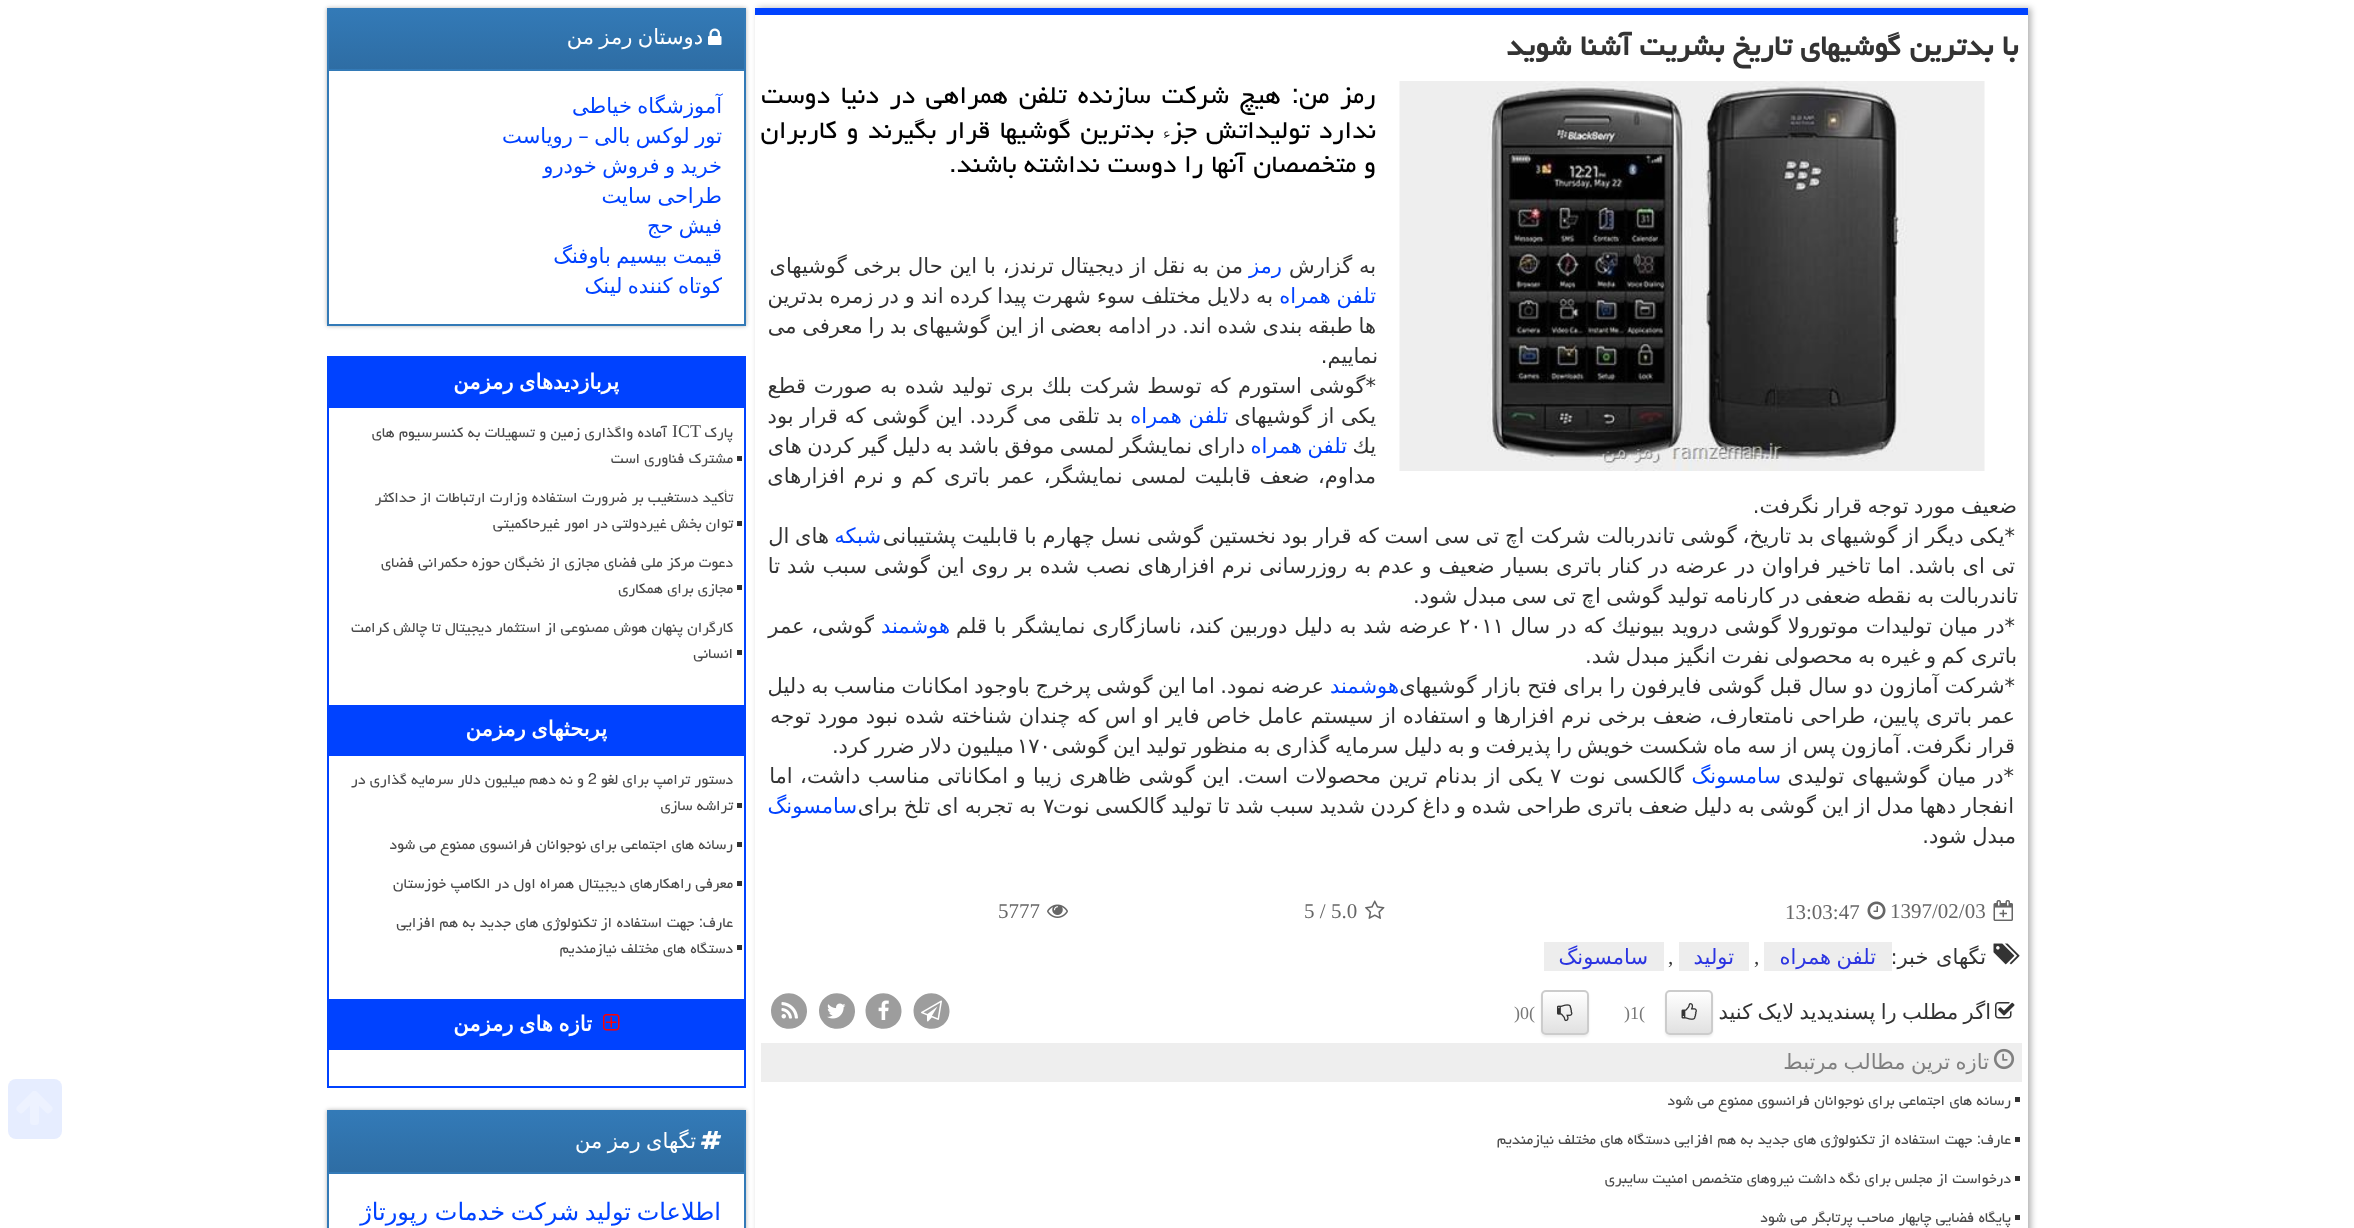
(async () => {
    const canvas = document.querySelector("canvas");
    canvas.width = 2354;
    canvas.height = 1228;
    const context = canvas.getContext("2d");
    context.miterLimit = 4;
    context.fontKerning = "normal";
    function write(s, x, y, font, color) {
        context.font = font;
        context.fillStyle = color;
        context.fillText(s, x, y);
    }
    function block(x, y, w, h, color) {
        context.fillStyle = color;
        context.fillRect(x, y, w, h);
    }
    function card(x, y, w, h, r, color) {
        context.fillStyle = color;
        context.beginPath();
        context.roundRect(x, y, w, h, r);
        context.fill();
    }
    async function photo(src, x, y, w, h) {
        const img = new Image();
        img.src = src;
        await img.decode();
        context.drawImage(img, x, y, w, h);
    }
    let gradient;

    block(0, 0, 2354, 1228, "rgb(255, 255, 255)");
    context.save();
    context.beginPath();
    context.moveTo(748, 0);
    context.lineTo(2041, 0);
    context.lineTo(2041, 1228);
    context.lineTo(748, 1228);
    context.closePath();
    context.moveTo(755, 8);
    context.lineTo(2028, 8);
    context.lineTo(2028, 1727);
    context.lineTo(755, 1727);
    context.closePath();
    context.clip("evenodd");
    context.fillStyle = "rgba(0, 0, 0, 0.3)";
    context.filter = "blur(3px)";
    context.beginPath();
    context.rect(758, 8, 1273, 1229);
    context.fill();
    context.filter = "none";
    context.restore();
    block(755, 8, 1273, 7, "rgb(0, 66, 255)");
    context.direction = "rtl";
    write("با بدترین گوشیهای تاریخ بشریت آشنا شوید", 2018, 55, "bold 35.75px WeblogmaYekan", "rgb(51, 51, 51)");
    await photo("media/1.png", 1399, 81, 586, 390);
    context.wordSpacing = "3.25px";
    write("رمز من: هیچ شركت سازنده تلفن همراهی در دنیا دوست", 1376, 103, "31.5px WeblogmaYekan", "rgb(0, 0, 0)");
    context.wordSpacing = "1.75px";
    write("ندارد تولیداتش جزء بدترین گوشیها قرار بگیرند و كاربران", 1376, 138, "31.5px WeblogmaYekan", "rgb(0, 0, 0)");
    context.wordSpacing = "0px";
    write("و متخصصان آنها را دوست نداشته باشند.", 1376, 172, "31.5px WeblogmaYekan", "rgb(0, 0, 0)");
    write("به گزارش", 1376, 273, "21px DejaVu Sans", "rgb(51, 51, 51)");
    write("رمز", 1282, 273, "21px DejaVu Sans", "rgb(0, 66, 255)");
    write("من به نقل از دیجیتال ترندز، با این حال برخی گوشیهای", 1243, 273, "21px DejaVu Sans", "rgb(51, 51, 51)");
    context.wordSpacing = "-1px";
    write("تلفن همراه", 1376, 303, "21px DejaVu Sans", "rgb(0, 66, 255)");
    context.wordSpacing = "-0.75px";
    write("به دلایل مختلف سوء شهرت پیدا كرده اند و در زمره بدترین", 1273, 303, "21px DejaVu Sans", "rgb(51, 51, 51)");
    context.wordSpacing = "-1px";
    write("ها طبقه بندی شده اند. در ادامه بعضی از این گوشیهای بد را معرفی می", 1376, 333, "21px DejaVu Sans", "rgb(51, 51, 51)");
    context.wordSpacing = "0px";
    write("نماییم.", 1378, 363, "21px DejaVu Sans", "rgb(51, 51, 51)");
    context.wordSpacing = "1px";
    write("*گوشی استورم كه توسط شركت بلك بری تولید شده به صورت قطع", 1376, 393, "21px DejaVu Sans", "rgb(51, 51, 51)");
    context.wordSpacing = "0px";
    write("یكی از گوشیهای", 1376, 423, "21px DejaVu Sans", "rgb(51, 51, 51)");
    write("تلفن همراه", 1228, 423, "21px DejaVu Sans", "rgb(0, 66, 255)");
    write("بد تلقی می گردد. این گوشی كه قرار بود", 1123, 423, "21px DejaVu Sans", "rgb(51, 51, 51)");
    write("یك", 1376, 453, "21px DejaVu Sans", "rgb(51, 51, 51)");
    context.wordSpacing = "-1.25px";
    write("تلفن همراه", 1347, 453, "21px DejaVu Sans", "rgb(0, 66, 255)");
    write("دارای نمایشگر لمسی موفق باشد به دلیل گیر كردن های", 1245, 453, "21px DejaVu Sans", "rgb(51, 51, 51)");
    context.wordSpacing = "2px";
    write("مداوم، ضعف قابلیت لمسی نمایشگر، عمر باتری كم و نرم افزارهای", 1376, 483, "21px DejaVu Sans", "rgb(51, 51, 51)");
    context.wordSpacing = "-1.25px";
    write("ضعیف مورد توجه قرار نگرفت.", 2017, 513, "21px DejaVu Sans", "rgb(51, 51, 51)");
    context.wordSpacing = "-0.7px";
    write("*یكی دیگر از گوشیهای بد تاریخ، گوشی تاندربالت شركت اچ تی سی است كه قرار بود نخستین گوشی نسل چهارم با قابلیت پشتیبانی", 2015, 543, "21px DejaVu Sans", "rgb(51, 51, 51)");
    context.wordSpacing = "0px";
    write("شبكه", 881, 543, "21px DejaVu Sans", "rgb(0, 66, 255)");
    context.wordSpacing = "-1px";
    write("های ال", 829, 543, "21px DejaVu Sans", "rgb(51, 51, 51)");
    context.wordSpacing = "0.25px";
    write("تی ای باشد. اما تاخیر فراوان در عرضه در كنار باتری بسیار ضعیف و عدم به روزرسانی نرم افزارهای نصب شده بر روی این گوشی سبب شد تا", 2015, 573, "21px DejaVu Sans", "rgb(51, 51, 51)");
    context.wordSpacing = "-1.25px";
    write("تاندربالت به نقطه ضعفی در كارنامه تولید گوشی اچ تی سی مبدل شود.", 2018, 603, "21px DejaVu Sans", "rgb(51, 51, 51)");
    context.wordSpacing = "0.25px";
    write("*در میان تولیدات موتورولا گوشی دروید بیونیك كه در سال", 2015, 633, "21px DejaVu Sans", "rgb(51, 51, 51)");
    context.wordSpacing = "0px";
    context.direction = "ltr";
    write("۲۰۱۱", 1459, 633, "21px DejaVu Sans", "rgb(51, 51, 51)");
    context.wordSpacing = "0.25px";
    context.direction = "rtl";
    write("عرضه شد به دلیل دوربین كند، ناسازگاری نمایشگر با قلم", 1452, 633, "21px DejaVu Sans", "rgb(51, 51, 51)");
    context.wordSpacing = "0px";
    write("هوشمند", 950, 633, "21px DejaVu Sans", "rgb(0, 66, 255)");
    write("گوشی، عمر", 874, 633, "21px DejaVu Sans", "rgb(51, 51, 51)");
    context.wordSpacing = "-1.25px";
    write("باتری كم و غیره به محصولی نفرت انگیز مبدل شد.", 2017, 663, "21px DejaVu Sans", "rgb(51, 51, 51)");
    context.wordSpacing = "-0.5px";
    write("*شركت آمازون دو سال قبل گوشی فایرفون را برای فتح بازار گوشیهای", 2015, 693, "21px DejaVu Sans", "rgb(51, 51, 51)");
    context.wordSpacing = "0px";
    write("هوشمند", 1399, 693, "21px DejaVu Sans", "rgb(0, 66, 255)");
    context.wordSpacing = "-1.1px";
    write("عرضه نمود. اما این گوشی پرخرج باوجود امكانات مناسب به دلیل", 1324, 693, "21px DejaVu Sans", "rgb(51, 51, 51)");
    context.wordSpacing = "0px";
    write("عمر باتری پایین، طراحی نامتعارف، ضعف برخی نرم افزارها و استفاده از سیستم عامل خاص فایر او اس كه چندان شناخته شده نبود مورد توجه", 2015, 723, "21px DejaVu Sans", "rgb(51, 51, 51)");
    context.wordSpacing = "-1.25px";
    write("قرار نگرفت. آمازون پس از سه ماه شكست خویش را پذیرفت و به دلیل سرمایه گذاری به منظور تولید این گوشی", 2015, 753, "21px DejaVu Sans", "rgb(51, 51, 51)");
    context.wordSpacing = "0px";
    context.direction = "ltr";
    write("۱۷۰", 1017, 753, "21px DejaVu Sans", "rgb(51, 51, 51)");
    context.wordSpacing = "-1.25px";
    context.direction = "rtl";
    write("میلیون دلار ضرر كرد.", 1014, 753, "21px DejaVu Sans", "rgb(51, 51, 51)");
    context.wordSpacing = "1px";
    write("*در میان گوشیهای تولیدی", 2014, 783, "21px DejaVu Sans", "rgb(51, 51, 51)");
    context.wordSpacing = "0px";
    write("سامسونگ", 1781, 783, "21px DejaVu Sans", "rgb(0, 66, 255)");
    context.wordSpacing = "1px";
    write("گالكسی نوت", 1684, 783, "21px DejaVu Sans", "rgb(51, 51, 51)");
    context.wordSpacing = "0px";
    context.direction = "ltr";
    write("۷", 1550, 783, "21px DejaVu Sans", "rgb(51, 51, 51)");
    context.wordSpacing = "0.75px";
    context.direction = "rtl";
    write("یكی از بدنام ترین محصولات است. این گوشی ظاهری زیبا و امكاناتی مناسب داشت، اما", 1543, 783, "21px DejaVu Sans", "rgb(51, 51, 51)");
    context.wordSpacing = "-1.1px";
    write("انفجار دهها مدل از این گوشی به دلیل ضعف باتری طراحی شده و داغ كردن شدید سبب شد تا تولید گالكسی نوت", 2014, 813, "21px DejaVu Sans", "rgb(51, 51, 51)");
    context.wordSpacing = "0px";
    context.direction = "ltr";
    write("۷", 1043, 813, "21px DejaVu Sans", "rgb(51, 51, 51)");
    context.wordSpacing = "-0.5px";
    context.direction = "rtl";
    write("به تجربه ای تلخ برای", 1036, 813, "21px DejaVu Sans", "rgb(51, 51, 51)");
    context.wordSpacing = "0px";
    write("سامسونگ", 857, 813, "21px DejaVu Sans", "rgb(0, 66, 255)");
    context.wordSpacing = "-1.25px";
    write("مبدل شود.", 2016, 843, "21px DejaVu Sans", "rgb(51, 51, 51)");
    await photo("media/2.png", 1993, 900, 20, 21);
    context.wordSpacing = "0px";
    context.direction = "ltr";
    write("1397/02/03", 1890, 918, "21px Liberation Serif", "rgb(102, 102, 102)");
    await photo("media/3.png", 1867, 901, 19, 19);
    write("13:03:47", 1785, 919, "21px Liberation Serif", "rgb(102, 102, 102)");
    await photo("media/4.png", 1365, 900, 20, 19);
    write("5.0", 1331, 918, "21px Liberation Serif", "rgb(102, 102, 102)");
    write("5 /", 1304, 918, "21px Liberation Serif", "rgb(102, 102, 102)");
    await photo("media/5.png", 1047, 904, 21, 14);
    write("5777", 998, 918, "21px Liberation Serif", "rgb(102, 102, 102)");
    await photo("media/6.png", 1993, 943, 27, 22);
    context.wordSpacing = "1px";
    context.direction = "rtl";
    write("تگهای خبر:", 1986, 964, "21px DejaVu Sans", "rgb(51, 51, 51)");
    block(1764, 942, 128, 29, "rgb(237, 237, 237)");
    context.wordSpacing = "-1.25px";
    write("تلفن همراه", 1876, 964, "21px DejaVu Sans", "rgb(43, 52, 225)");
    context.wordSpacing = "0px";
    context.direction = "ltr";
    write(",", 1754, 964, "21px Liberation Serif", "rgb(51, 51, 51)");
    block(1679, 942, 70, 29, "rgb(237, 237, 237)");
    context.direction = "rtl";
    write("تولید", 1734, 964, "21px DejaVu Sans", "rgb(43, 52, 225)");
    context.direction = "ltr";
    write(",", 1668, 964, "21px Liberation Serif", "rgb(51, 51, 51)");
    block(1544, 942, 120, 29, "rgb(237, 237, 237)");
    context.direction = "rtl";
    write("سامسونگ", 1648, 964, "21px DejaVu Sans", "rgb(43, 52, 225)");
    await photo("media/7.png", 1995, 1002, 20, 17);
    context.wordSpacing = "-1.25px";
    write("اگر مطلب را پسندیدید لایک کنید", 1991, 1019, "21px DejaVu Sans", "rgb(51, 51, 51)");
    context.fillStyle = "rgba(0, 0, 0, 0.07)";
    context.filter = "blur(1px)";
    context.beginPath();
    context.roundRect(1665, 992, 48, 45, 5);
    context.fill();
    context.filter = "none";
    context.save();
    context.beginPath();
    context.roundRect(1665, 990, 48, 45, 5);
    context.clip();
    gradient = context.createLinearGradient(1689, 992, 1689, 1034);
    gradient.addColorStop(0, "rgb(255, 255, 255)");
    gradient.addColorStop(1, "rgb(224, 224, 224)");
    context.fillStyle = gradient;
    context.fillRect(1665, 992, 48, 42);
    context.restore();
    context.beginPath();
    context.roundRect(1666, 991, 46, 43, 4);
    context.strokeStyle = "rgb(204, 204, 204)";
    context.lineWidth = 2;
    context.stroke();
    await photo("media/8.png", 1681, 1003, 16, 17);
    context.wordSpacing = "0px";
    context.direction = "ltr";
    write(")1(", 1624, 1019, "18px Liberation Serif", "rgb(119, 119, 119)");
    context.fillStyle = "rgba(0, 0, 0, 0.07)";
    context.filter = "blur(1px)";
    context.beginPath();
    context.roundRect(1541, 992, 48, 45, 5);
    context.fill();
    context.filter = "none";
    context.save();
    context.beginPath();
    context.roundRect(1541, 990, 48, 45, 5);
    context.clip();
    gradient = context.createLinearGradient(1565, 992, 1565, 1034);
    gradient.addColorStop(0, "rgb(255, 255, 255)");
    gradient.addColorStop(1, "rgb(224, 224, 224)");
    context.fillStyle = gradient;
    context.fillRect(1541, 992, 48, 42);
    context.restore();
    context.beginPath();
    context.roundRect(1542, 991, 46, 43, 4);
    context.stroke();
    await photo("media/9.png", 1557, 1004, 16, 18);
    write(")0(", 1514, 1019, "18px Liberation Serif", "rgb(119, 119, 119)");
    context.fillStyle = "rgb(157, 157, 157)";
    context.beginPath();
    context.moveTo(947, 1002);
    context.bezierCurveTo(949, 1005, 949.5, 1008.5, 949.5, 1012);
    context.bezierCurveTo(948.5, 1030, 925, 1035, 916, 1020);
    context.bezierCurveTo(914, 1017, 913.5, 1013.5, 913.5, 1010);
    context.bezierCurveTo(914.5, 992, 938, 987, 947, 1002);
    context.closePath();
    context.fill();
    await photo("media/10.png", 921, 1000, 21, 22);
    context.beginPath();
    context.moveTo(899, 1002);
    context.bezierCurveTo(901, 1005, 901.5, 1008.5, 901.5, 1012);
    context.bezierCurveTo(900.5, 1030, 877, 1035, 868, 1020);
    context.bezierCurveTo(866, 1017, 865.5, 1013.5, 865.5, 1010);
    context.bezierCurveTo(866.5, 992, 890, 987, 899, 1002);
    context.closePath();
    context.fill();
    await photo("media/11.png", 878, 1000, 11, 20);
    context.beginPath();
    context.moveTo(852.5, 1002);
    context.bezierCurveTo(854.5, 1005, 855, 1008.5, 855, 1012);
    context.bezierCurveTo(854, 1030, 830.5, 1035, 821.5, 1020);
    context.bezierCurveTo(819.5, 1017, 819, 1013.5, 819, 1010);
    context.bezierCurveTo(820, 992, 843.5, 987, 852.5, 1002);
    context.closePath();
    context.fill();
    await photo("media/12.png", 827, 1003, 19, 16);
    context.beginPath();
    context.moveTo(804.5, 1002);
    context.bezierCurveTo(806.5, 1005, 807, 1008.5, 807, 1012);
    context.bezierCurveTo(806, 1030, 782.5, 1035, 773.5, 1020);
    context.bezierCurveTo(771.5, 1017, 771, 1013.5, 771, 1010);
    context.bezierCurveTo(772, 992, 795.5, 987, 804.5, 1002);
    context.closePath();
    context.fill();
    await photo("media/13.png", 781, 1002, 17, 17);
    block(761, 1043, 1261, 39, "rgb(238, 238, 238)");
    await photo("media/14.png", 1993, 1048, 22, 22);
    context.wordSpacing = "-1.25px";
    context.direction = "rtl";
    write("تازه ترین مطالب مرتبط", 1989, 1069, "21px DejaVu Sans", "rgb(128, 128, 128)");
    block(2015, 1097, 5, 5, "rgb(51, 51, 51)");
    context.wordSpacing = "0px";
    write("رسانه های اجتماعی برای نوجوانان فرانسوی ممنوع می شود", 2011, 1105, "18px WeblogmaYekan", "rgb(74, 74, 74)");
    block(2015, 1137, 5, 5, "rgb(51, 51, 51)");
    write("عارف: جهت استفاده از تکنولوژی های جدید به هم افزایی دستگاه های مختلف نیازمندیم", 2011, 1144, "18px WeblogmaYekan", "rgb(74, 74, 74)");
    block(2015, 1176, 5, 5, "rgb(51, 51, 51)");
    write("درخواست از مجلس برای نگه داشت نیروهای متخصص امنیت سایبری", 2011, 1183, "18px WeblogmaYekan", "rgb(74, 74, 74)");
    block(2015, 1215, 5, 5, "rgb(51, 51, 51)");
    write("پایگاه فضایی چابهار صاحب پرتابگر می شود", 2011, 1222, "18px WeblogmaYekan", "rgb(74, 74, 74)");
    context.fillStyle = "rgba(0, 0, 0, 0.3)";
    context.filter = "blur(2px)";
    context.beginPath();
    context.rect(327, 8, 419, 318);
    context.fill();
    context.filter = "none";
    block(329, 71, 415, 253, "rgb(255, 255, 255)");
    context.strokeStyle = "rgb(51, 122, 183)";
    context.strokeRect(328, 9, 417, 316);
    block(329, 69, 415, 2, "rgb(51, 122, 183)");
    gradient = context.createLinearGradient(536, 9, 536, 69);
    gradient.addColorStop(0, "rgb(51, 122, 183)");
    gradient.addColorStop(1, "rgb(46, 109, 164)");
    context.fillStyle = gradient;
    context.fillRect(329, 10, 415, 59);
    await photo("media/15.png", 708, 28, 14, 17);
    context.wordSpacing = "-1.25px";
    write("دوستان رمز من", 703, 44, "21px DejaVu Sans", "rgb(255, 255, 255)");
    write("آموزشگاه خیاطی", 722, 113, "21px DejaVu Sans", "rgb(0, 66, 255)");
    write("تور لوکس بالی – رویاست", 722, 143, "21px DejaVu Sans", "rgb(0, 66, 255)");
    write("خرید و فروش خودرو", 722, 173, "21px DejaVu Sans", "rgb(0, 66, 255)");
    write("طراحی سایت", 722, 203, "21px DejaVu Sans", "rgb(0, 66, 255)");
    write("فیش حج", 722, 233, "21px DejaVu Sans", "rgb(0, 66, 255)");
    write("قیمت بیسیم باوفنگ", 722, 263, "21px DejaVu Sans", "rgb(0, 66, 255)");
    write("کوتاه کننده لینک", 722, 293, "21px DejaVu Sans", "rgb(0, 66, 255)");
    context.strokeStyle = "rgb(0, 66, 255)";
    context.strokeRect(328, 357, 417, 730);
    block(329, 358, 415, 50, "rgb(0, 66, 255)");
    context.wordSpacing = "-1px";
    write("پربازدیدهای رمزمن", 619, 389, "bold 21px DejaVu Sans", "rgb(255, 255, 255)");
    block(737, 456, 5, 5, "rgb(51, 51, 51)");
    context.wordSpacing = "0px";
    write("پارک", 733, 437, "18px WeblogmaYekan", "rgb(74, 74, 74)");
    context.direction = "ltr";
    write("ICT", 672, 437, "18px Liberation Serif", "rgb(74, 74, 74)");
    context.direction = "rtl";
    write("آماده واگذاری زمین و تسهیلات به کنسرسیوم های", 667, 437, "18px WeblogmaYekan", "rgb(74, 74, 74)");
    write("مشترک فناوری است", 733, 463, "18px WeblogmaYekan", "rgb(74, 74, 74)");
    block(737, 521, 5, 5, "rgb(51, 51, 51)");
    write("تأکید دستغیب بر ضرورت استفاده وزارت ارتباطات از حداکثر", 733, 502, "18px WeblogmaYekan", "rgb(74, 74, 74)");
    write("توان بخش غیردولتی در امور غیرحاکمیتی", 733, 528, "18px WeblogmaYekan", "rgb(74, 74, 74)");
    block(737, 585, 5, 5, "rgb(51, 51, 51)");
    write("دعوت مرکز ملی فضای مجازی از نخبگان حوزه حکمرانی فضای", 733, 567, "18px WeblogmaYekan", "rgb(74, 74, 74)");
    write("مجازی برای همکاری", 733, 593, "18px WeblogmaYekan", "rgb(74, 74, 74)");
    block(737, 650, 5, 5, "rgb(51, 51, 51)");
    write("کارگران پنهان هوش مصنوعی از استثمار دیجیتال تا چالش کرامت", 733, 632, "18px WeblogmaYekan", "rgb(74, 74, 74)");
    write("انسانی", 733, 658, "18px WeblogmaYekan", "rgb(74, 74, 74)");
    block(329, 705, 415, 51, "rgb(0, 66, 255)");
    context.wordSpacing = "-1px";
    write("پربحثهای رمزمن", 607, 736, "bold 21px DejaVu Sans", "rgb(255, 255, 255)");
    block(737, 803, 5, 5, "rgb(51, 51, 51)");
    context.wordSpacing = "0px";
    write("دستور ترامپ برای لغو", 733, 784, "18px WeblogmaYekan", "rgb(74, 74, 74)");
    context.direction = "ltr";
    write("2", 588, 784, "18px WeblogmaYekan", "rgb(74, 74, 74)");
    context.direction = "rtl";
    write("و نه دهم میلیون دلار سرمایه گذاری در", 584, 784, "18px WeblogmaYekan", "rgb(74, 74, 74)");
    write("تراشه سازی", 733, 810, "18px WeblogmaYekan", "rgb(74, 74, 74)");
    block(737, 842, 5, 5, "rgb(51, 51, 51)");
    write("رسانه های اجتماعی برای نوجوانان فرانسوی ممنوع می شود", 733, 849, "18px WeblogmaYekan", "rgb(74, 74, 74)");
    block(737, 881, 5, 5, "rgb(51, 51, 51)");
    write("معرفی راهکارهای دیجیتال همراه اول در الکامپ خوزستان", 733, 888, "18px WeblogmaYekan", "rgb(74, 74, 74)");
    block(737, 945, 5, 5, "rgb(51, 51, 51)");
    write("عارف: جهت استفاده از تکنولوژی های جدید به هم افزایی", 733, 927, "18px WeblogmaYekan", "rgb(74, 74, 74)");
    write("دستگاه های مختلف نیازمندیم", 733, 953, "18px WeblogmaYekan", "rgb(74, 74, 74)");
    block(329, 999, 415, 51, "rgb(0, 66, 255)");
    await photo("media/16.png", 603, 1014, 17, 17);
    context.wordSpacing = "-1px";
    write("تازه های رمزمن", 592, 1031, "bold 21px DejaVu Sans", "rgb(255, 255, 255)");
    context.fillStyle = "rgba(0, 0, 0, 0.3)";
    context.filter = "blur(2px)";
    context.beginPath();
    context.rect(327, 1110, 419, 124);
    context.fill();
    context.filter = "none";
    block(329, 1174, 415, 54, "rgb(255, 255, 255)");
    context.strokeStyle = "rgb(51, 122, 183)";
    context.strokeRect(328, 1111, 417, 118);
    gradient = context.createLinearGradient(536, 1112, 536, 1172);
    gradient.addColorStop(0, "rgb(51, 122, 183)");
    gradient.addColorStop(1, "rgb(46, 109, 164)");
    context.fillStyle = gradient;
    context.fillRect(329, 1112, 415, 60);
    block(329, 1172, 415, 2, "rgb(51, 122, 183)");
    await photo("media/17.png", 700, 1131, 22, 18);
    context.wordSpacing = "-1.25px";
    write("تگهای رمز من", 696, 1148, "21px DejaVu Sans", "rgb(255, 255, 255)");
    context.wordSpacing = "0px";
    write("اطلاعات", 721, 1220, "24px DejaVu Sans", "rgb(0, 66, 255)");
    write("تولید", 631, 1220, "24px DejaVu Sans", "rgb(0, 66, 255)");
    write("شركت", 579, 1220, "24px DejaVu Sans", "rgb(0, 66, 255)");
    write("خدمات", 505, 1220, "24px DejaVu Sans", "rgb(0, 66, 255)");
    write("رپورتاژ", 428, 1220, "24px DejaVu Sans", "rgb(0, 66, 255)");
    card(8, 1079, 54, 60, 8, "rgb(230, 237, 255)");
    await photo("media/18.png", 16, 1091, 37, 34);
})();
